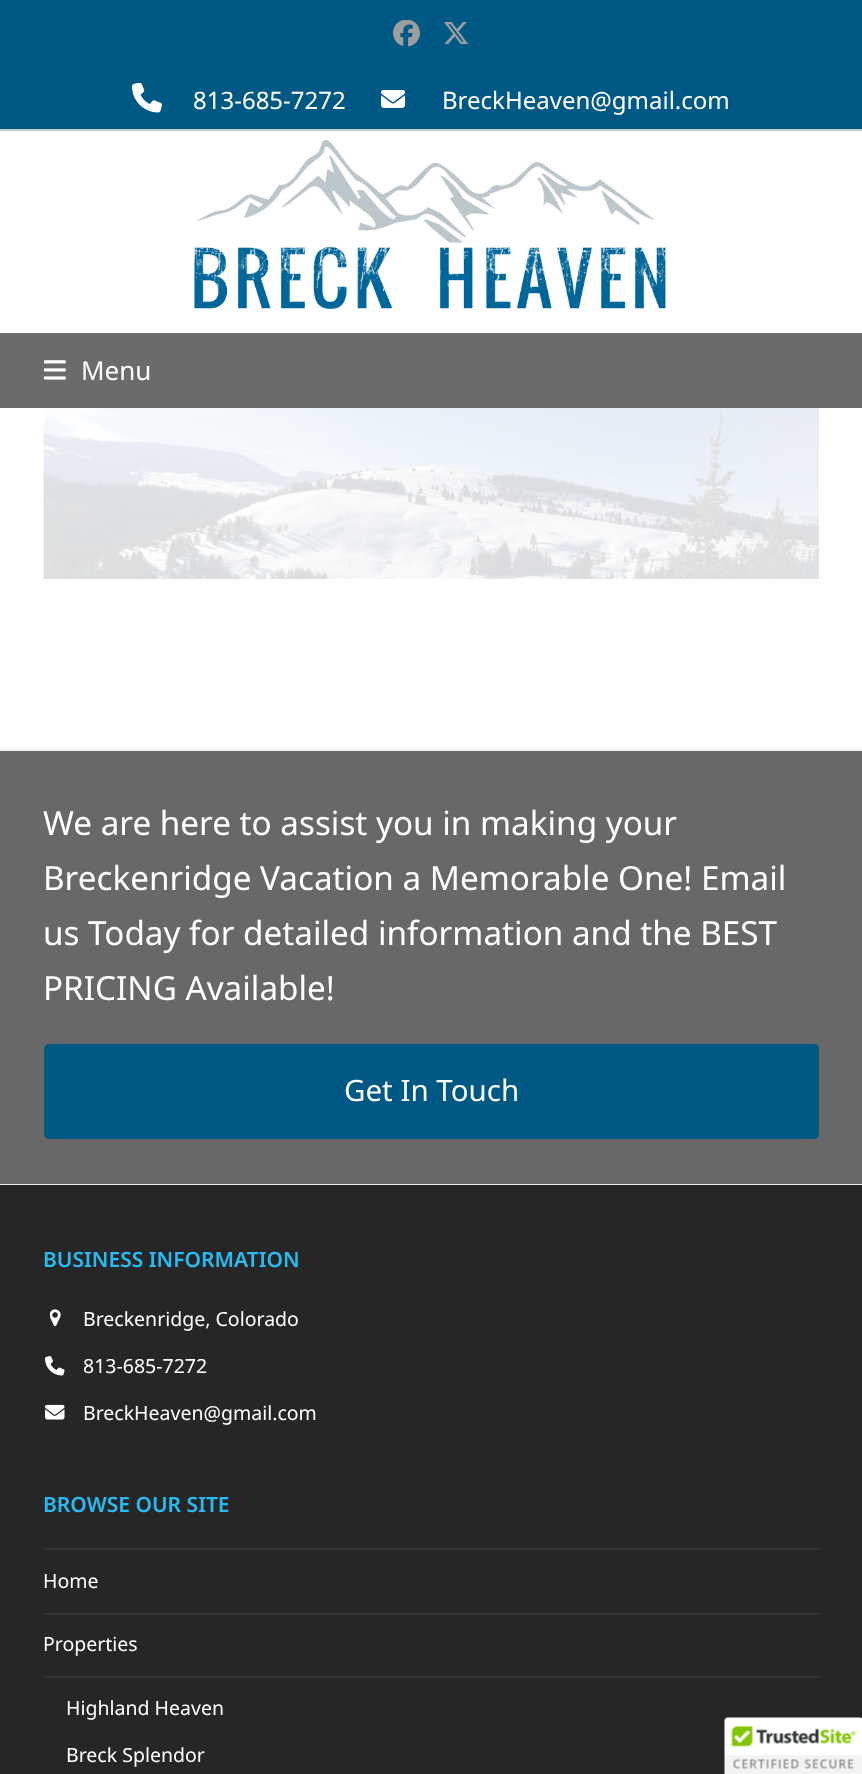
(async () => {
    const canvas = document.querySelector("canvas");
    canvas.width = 862;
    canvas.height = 1774;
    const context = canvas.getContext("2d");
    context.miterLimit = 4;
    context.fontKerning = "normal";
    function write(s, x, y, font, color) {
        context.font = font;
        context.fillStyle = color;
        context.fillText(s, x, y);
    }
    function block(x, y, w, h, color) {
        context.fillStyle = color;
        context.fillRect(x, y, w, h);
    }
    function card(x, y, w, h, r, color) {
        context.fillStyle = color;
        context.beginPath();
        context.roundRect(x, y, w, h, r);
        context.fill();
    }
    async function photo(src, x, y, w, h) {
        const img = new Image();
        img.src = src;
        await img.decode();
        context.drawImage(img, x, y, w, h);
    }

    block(0, 0, 862, 1774, "rgb(255, 255, 255)");
    block(0, 0, 862, 129, "rgb(0, 88, 132)");
    block(0, 129, 862, 2, "rgb(198, 198, 198)");
    await photo("media/1.png", 393, 20, 27, 27);
    await photo("media/2.png", 444, 22, 25, 22);
    await photo("media/3.png", 132, 83, 30, 30);
    write("813-685-7272", 193, 109, "24px Noto Sans", "rgb(255, 255, 255)");
    await photo("media/4.png", 381, 90, 24, 18);
    write("BreckHeaven@gmail.com", 442, 109, "24px Noto Sans", "rgb(255, 255, 255)");
    await photo("media/5.png", 194, 140, 472, 169);
    block(0, 333, 862, 75, "rgb(107, 107, 107)");
    await photo("media/6.png", 44, 360, 22, 20);
    write("Menu", 81, 380, "26px Noto Sans", "rgb(255, 255, 255)");
    await photo("media/7.png", 43, 408, 776, 171);
    block(0, 751, 862, 433, "rgb(104, 104, 104)");
    block(0, 749, 862, 2, "rgb(238, 238, 238)");
    block(0, 1184, 862, 1, "rgb(238, 238, 238)");
    write("We are here to assist you in making your", 43, 835, "33.25px Noto Sans", "rgb(255, 255, 255)");
    write("Breckenridge Vacation a Memorable One! Email", 43, 890, "33.25px Noto Sans", "rgb(255, 255, 255)");
    write("us Today for detailed information and the BEST", 43, 945, "33.25px Noto Sans", "rgb(255, 255, 255)");
    write("PRICING Available!", 43, 1000, "33.25px Noto Sans", "rgb(255, 255, 255)");
    card(44, 1044, 775, 95, 5, "rgb(0, 88, 132)");
    write("Get In Touch", 344, 1101, "29.5px Noto Sans", "rgb(255, 255, 255)");
    block(0, 1185, 862, 589, "rgb(38, 38, 38)");
    write("BUSINESS INFORMATION", 43, 1267, "600 21px Noto Sans", "rgb(39, 189, 244)");
    await photo("media/8.png", 50, 1309, 11, 18);
    write("Breckenridge, Colorado", 83, 1326, "19.5px Noto Sans", "rgb(255, 255, 255)");
    await photo("media/9.png", 45, 1356, 20, 20);
    write("813-685-7272", 83, 1373, "19.5px Noto Sans", "rgb(255, 255, 255)");
    await photo("media/10.png", 45, 1404, 20, 16);
    write("BreckHeaven@gmail.com", 83, 1420, "19.5px Noto Sans", "rgb(255, 255, 255)");
    write("BROWSE OUR SITE", 43, 1512, "600 21px Noto Sans", "rgb(39, 189, 244)");
    block(44, 1548, 775, 2, "rgb(51, 51, 51)");
    block(44, 1613, 775, 2, "rgb(51, 51, 51)");
    write("Home", 43, 1588, "19.5px Noto Sans", "rgb(255, 255, 255)");
    write("Properties", 43, 1651, "19.5px Noto Sans", "rgb(255, 255, 255)");
    block(44, 1676, 775, 2, "rgb(51, 51, 51)");
    write("Highland Heaven", 66, 1715, "19.5px Noto Sans", "rgb(255, 255, 255)");
    write("Breck Splendor", 66, 1762, "19.5px Noto Sans", "rgb(255, 255, 255)");
    context.beginPath();
    context.moveTo(728, 1718);
    context.lineTo(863, 1718);
    context.lineTo(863, 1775);
    context.lineTo(725, 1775);
    context.lineTo(725, 1721);
    context.bezierCurveTo(725, 1719.5, 726.5, 1718, 728, 1718);
    context.closePath();
    context.fill();
    await photo("media/11.png", 724, 1717, 138, 57);
})();
